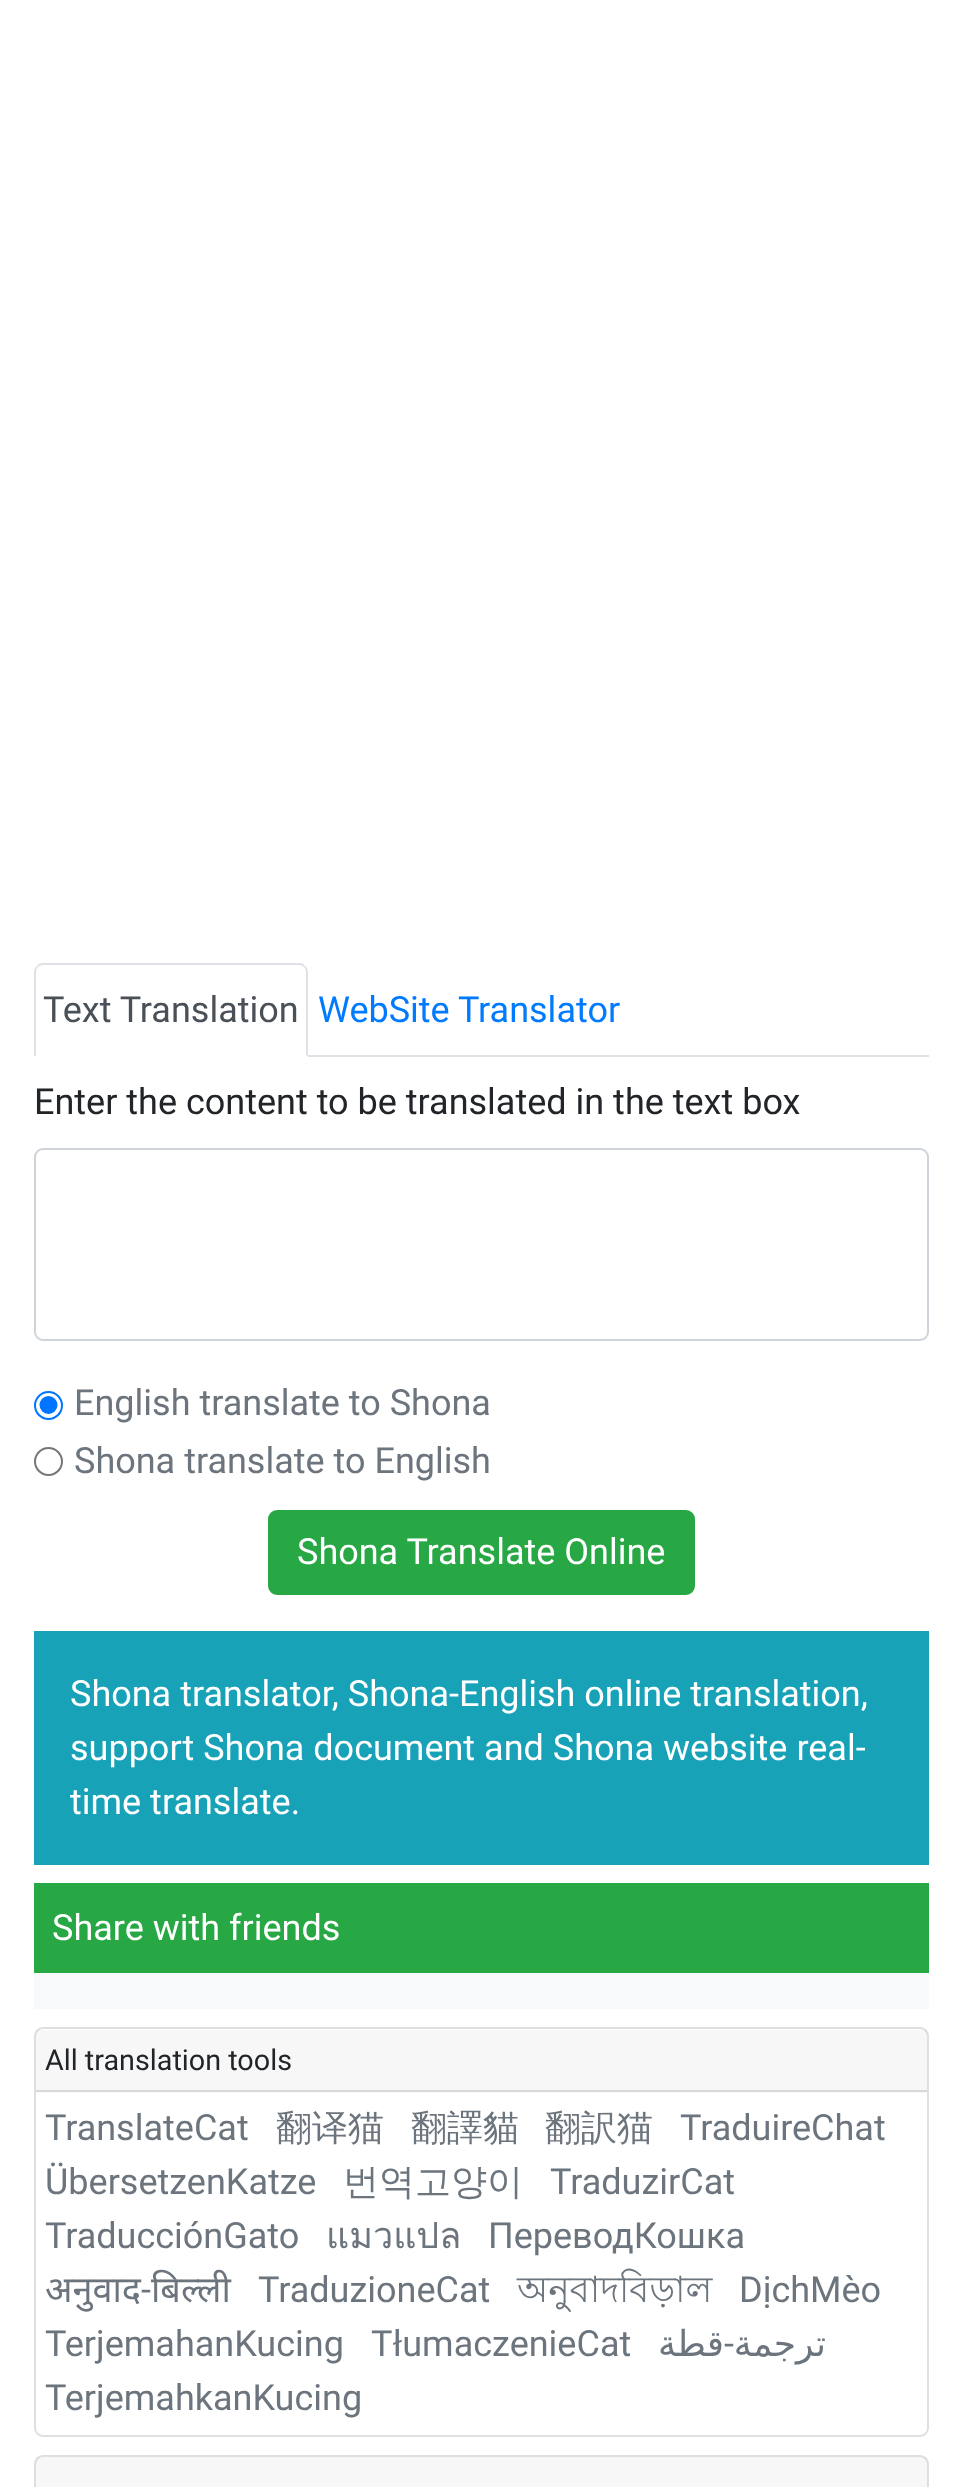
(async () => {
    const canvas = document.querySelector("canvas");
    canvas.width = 962;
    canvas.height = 2487;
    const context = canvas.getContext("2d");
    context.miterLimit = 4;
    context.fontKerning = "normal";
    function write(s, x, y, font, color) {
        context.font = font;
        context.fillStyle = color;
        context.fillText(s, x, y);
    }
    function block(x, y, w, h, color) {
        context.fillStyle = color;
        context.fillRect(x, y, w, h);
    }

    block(0, 0, 962, 2487, "rgb(255, 255, 255)");
    block(308, 1055, 621, 2, "rgb(222, 226, 230)");
    context.beginPath();
    context.moveTo(43, 963);
    context.bezierCurveTo(40, 963, 38, 964, 37, 966);
    context.lineTo(38, 967);
    context.bezierCurveTo(39, 966, 41, 965, 43, 965);
    context.lineTo(299, 965);
    context.bezierCurveTo(301, 965, 303, 966, 304, 967);
    context.lineTo(305, 966);
    context.bezierCurveTo(304, 964, 302, 963, 299, 963);
    context.closePath();
    context.fill();
    context.beginPath();
    context.moveTo(305, 966);
    context.bezierCurveTo(307, 967, 308, 970, 308, 972);
    context.lineTo(308, 1057);
    context.lineTo(306, 1055);
    context.lineTo(306, 972);
    context.bezierCurveTo(306, 970, 305, 968, 304, 967);
    context.closePath();
    context.fill();
    context.fillStyle = "rgb(255, 255, 255)";
    context.beginPath();
    context.moveTo(34, 1058);
    context.lineTo(36, 1055);
    context.lineTo(306, 1055);
    context.lineTo(308, 1057);
    context.closePath();
    context.fill();
    context.fillStyle = "rgb(222, 226, 230)";
    context.beginPath();
    context.moveTo(37, 966);
    context.bezierCurveTo(35, 967, 34, 970, 34, 972);
    context.lineTo(34, 1057);
    context.lineTo(36, 1055);
    context.lineTo(36, 972);
    context.bezierCurveTo(36, 970, 37, 968, 38, 967);
    context.closePath();
    context.fill();
    write("Text Translation", 43, 1022, "36px Roboto", "rgb(73, 80, 87)");
    write("WebSite Translator", 318, 1022, "36px Roboto", "rgb(0, 123, 255)");
    write("Enter the content to be translated in the text box", 34, 1114, "36px Roboto", "rgb(33, 37, 41)");
    context.beginPath();
    context.roundRect(35, 1149, 893, 191, 8);
    context.strokeStyle = "rgb(206, 212, 218)";
    context.lineWidth = 2;
    context.stroke();
    context.beginPath();
    context.arc(48.5, 1405.5, 13.5, 0, Math.PI * 2);
    context.strokeStyle = "rgb(0, 117, 255)";
    context.stroke();
    context.fillStyle = "rgb(0, 117, 255)";
    context.beginPath();
    context.arc(48.5, 1405, 9, 0, Math.PI * 2);
    context.fill();
    write("English translate to Shona", 74, 1415, "36px Roboto", "rgb(108, 117, 125)");
    context.beginPath();
    context.arc(48.5, 1461.5, 13.5, 0, Math.PI * 2);
    context.strokeStyle = "rgb(118, 118, 118)";
    context.stroke();
    write("Shona translate to English", 74, 1473, "36px Roboto", "rgb(108, 117, 125)");
    context.fillStyle = "rgb(40, 167, 69)";
    context.beginPath();
    context.roundRect(269, 1511, 425, 83, 8);
    context.fill();
    context.strokeStyle = "rgb(40, 167, 69)";
    context.stroke();
    write("Shona Translate Online", 297, 1564, "36px Roboto", "rgb(255, 255, 255)");
    block(34, 1631, 895, 234, "rgb(23, 162, 184)");
    write("Shona translator, Shona-English online translation,", 70, 1706, "36px Roboto", "rgb(255, 255, 255)");
    write("support Shona document and Shona website real-", 70, 1760, "36px Roboto", "rgb(255, 255, 255)");
    write("time translate.", 70, 1814, "36px Roboto", "rgb(255, 255, 255)");
    block(34, 1883, 895, 90, "rgb(40, 167, 69)");
    write("Share with friends", 52, 1940, "36px Roboto", "rgb(255, 255, 255)");
    block(34, 1973, 895, 36, "rgb(248, 249, 250)");
    context.beginPath();
    context.roundRect(35, 2028, 893, 408, 8);
    context.strokeStyle = "rgb(223, 223, 223)";
    context.stroke();
    block(36, 2030, 891, 63, "rgba(0, 0, 0, 0.03)");
    block(36, 2090, 891, 2, "rgb(216, 216, 216)");
    write("All translation tools", 45, 2070, "28.75px Roboto", "rgb(33, 37, 41)");
    write("TranslateCat", 45, 2140, "36px Roboto", "rgb(108, 117, 125)");
    write("翻译猫", 276, 2140, "500 36px WenQuanYi Zen Hei", "rgb(108, 117, 125)");
    write("翻譯貓", 411, 2140, "500 36px WenQuanYi Zen Hei", "rgb(108, 117, 125)");
    write("翻訳猫", 545, 2140, "500 36px WenQuanYi Zen Hei", "rgb(108, 117, 125)");
    write("TraduireChat", 680, 2140, "36px Roboto", "rgb(108, 117, 125)");
    write("ÜbersetzenKatze", 45, 2194, "36px Roboto", "rgb(108, 117, 125)");
    write("번역고양이", 343, 2194, "500 36px WenQuanYi Zen Hei", "rgb(108, 117, 125)");
    write("TraduzirCat", 550, 2194, "36px Roboto", "rgb(108, 117, 125)");
    write("TraducciónGato", 45, 2248, "36px Roboto", "rgb(108, 117, 125)");
    write("แมวแปล", 326, 2248, "36px Loma", "rgb(108, 117, 125)");
    write("ПереводКошка", 488, 2248, "36px Roboto", "rgb(108, 117, 125)");
    write("अनुवाद", 45, 2302, "36px Noto Sans", "rgb(108, 117, 125)");
    write("-", 141, 2302, "36px Roboto", "rgb(108, 117, 125)");
    write("बिल्ली", 151, 2302, "36px Noto Sans", "rgb(108, 117, 125)");
    write("TraduzioneCat", 258, 2302, "36px Roboto", "rgb(108, 117, 125)");
    write("অনুবাদবিড়াল", 517, 2302, "36px Lohit Bengali", "rgb(108, 117, 125)");
    write("DịchMèo", 739, 2302, "36px Roboto", "rgb(108, 117, 125)");
    write("TerjemahanKucing", 45, 2356, "36px Roboto", "rgb(108, 117, 125)");
    write("TłumaczenieCat", 371, 2356, "36px Roboto", "rgb(108, 117, 125)");
    context.direction = "rtl";
    write("قطة", 724, 2356, "36px DejaVu Sans", "rgb(108, 117, 125)");
    write("-", 734, 2356, "36px Roboto", "rgb(108, 117, 125)");
    write("ترجمة", 826, 2356, "36px DejaVu Sans", "rgb(108, 117, 125)");
    context.direction = "ltr";
    write("TerjemahkanKucing", 45, 2410, "36px Roboto", "rgb(108, 117, 125)");
    context.beginPath();
    context.roundRect(35, 2456, 893, 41, 8);
    context.stroke();
    block(36, 2457, 891, 30, "rgba(0, 0, 0, 0.03)");
})();
